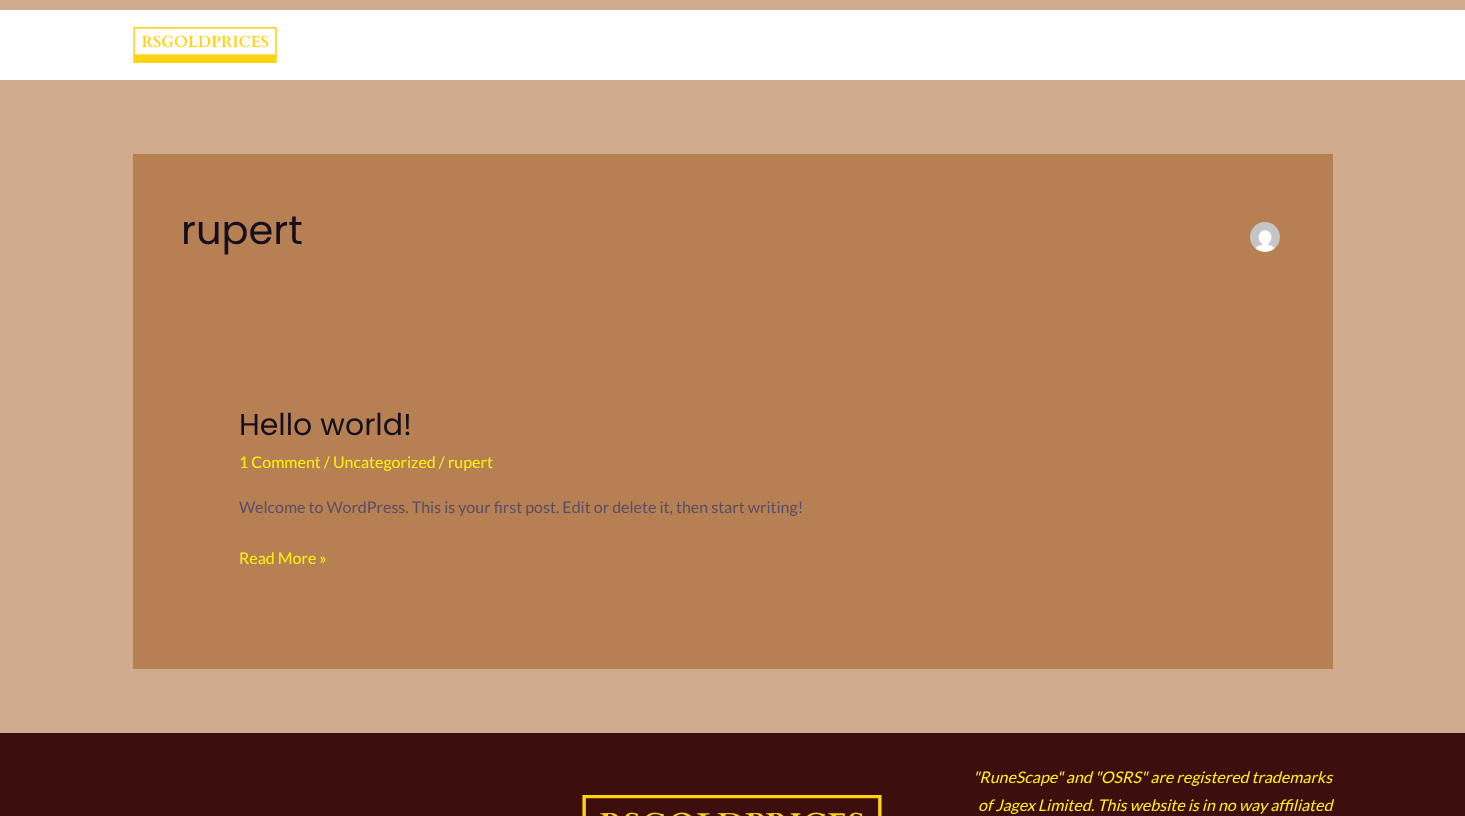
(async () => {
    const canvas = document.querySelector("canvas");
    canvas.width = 1465;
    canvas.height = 816;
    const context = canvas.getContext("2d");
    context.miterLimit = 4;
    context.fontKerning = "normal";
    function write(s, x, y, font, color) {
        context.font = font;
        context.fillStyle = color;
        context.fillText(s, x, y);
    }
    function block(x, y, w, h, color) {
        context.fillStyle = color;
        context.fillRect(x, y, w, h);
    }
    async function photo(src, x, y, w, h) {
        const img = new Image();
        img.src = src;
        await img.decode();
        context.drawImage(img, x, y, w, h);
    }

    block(0, 0, 1465, 816, "rgb(208, 171, 142)");
    block(0, 10, 1465, 70, "rgb(255, 255, 255)");
    await photo("media/1.png", 133, 27, 144, 36);
    block(133, 154, 1200, 515, "rgb(183, 128, 83)");
    write("rupert", 181, 244, "40px Poppins", "rgb(21, 14, 31)");
    await photo("media/2.png", 1250, 222, 30, 30);
    write("Hello world!", 239, 435, "30px Poppins", "rgb(21, 14, 31)");
    write("1 Comment / Uncategorized / rupert", 239, 468, "16px Lato", "rgb(255, 243, 9)");
    write("Welcome to WordPress. This is your first post. Edit or delete it, then start writing!", 239, 513, "16px Lato", "rgb(88, 77, 102)");
    write("Read More »", 239, 564, "16px Lato", "rgb(255, 243, 9)");
    block(0, 733, 1465, 83, "rgb(60, 14, 14)");
    await photo("media/3.png", 582, 795, 300, 21);
    write("\"RuneScape\" and \"OSRS\" are registered trademarks", 973, 783, "italic 16px Lato", "rgb(255, 243, 9)");
    write("of Jagex Limited. This website is in no way affiliated", 978, 811, "italic 16px Lato", "rgb(255, 243, 9)");
})();
